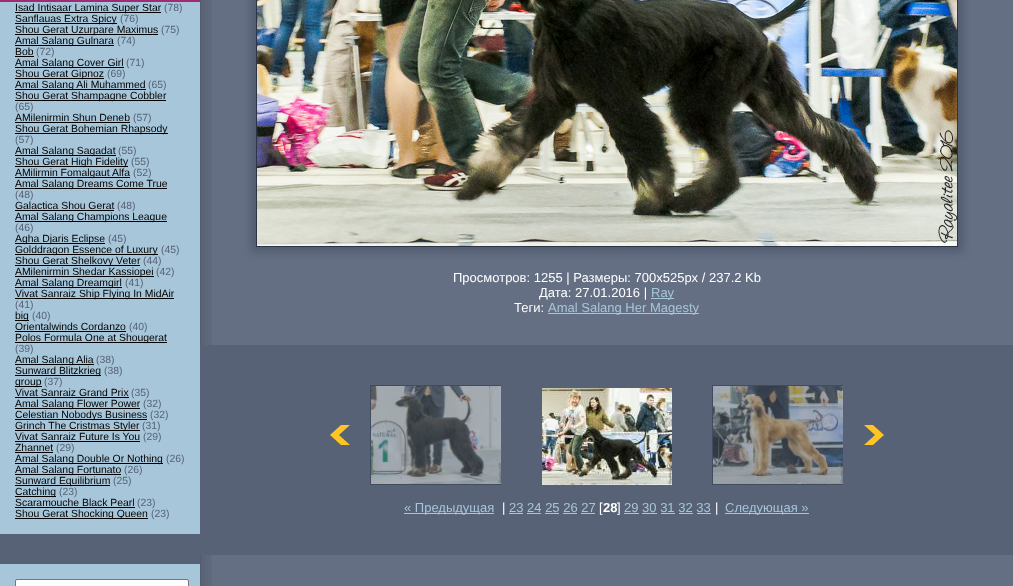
(async () => {
    const canvas = document.querySelector("canvas");
    canvas.width = 1013;
    canvas.height = 586;
    const context = canvas.getContext("2d");
    context.miterLimit = 4;
    context.fontKerning = "normal";
    function write(s, x, y, font, color) {
        context.font = font;
        context.fillStyle = color;
        context.fillText(s, x, y);
    }
    function block(x, y, w, h, color) {
        context.fillStyle = color;
        context.fillRect(x, y, w, h);
    }
    async function photo(src, x, y, w, h) {
        const img = new Image();
        img.src = src;
        await img.decode();
        context.drawImage(img, x, y, w, h);
    }

    block(0, 0, 1013, 586, "rgb(100, 111, 131)");
    block(0, 534, 200, 30, "rgb(87, 98, 118)");
    block(0, 2, 200, 532, "rgb(167, 198, 218)");
    block(0, 0, 200, 2, "rgb(162, 42, 117)");
    block(15, 12, 146, 1, "rgb(0, 0, 0)");
    write("Isad Intisaar Lamina Super Star", 15, 11, "10.4px Liberation Sans", "rgb(0, 0, 0)");
    write("(78)", 164, 11, "10.4px Liberation Sans", "rgb(87, 98, 118)");
    block(15, 23, 102, 1, "rgb(0, 0, 0)");
    write("Sanflauas Extra Spicy", 15, 22, "10.4px Liberation Sans", "rgb(0, 0, 0)");
    write("(76)", 120, 22, "10.4px Liberation Sans", "rgb(87, 98, 118)");
    block(15, 34, 143, 1, "rgb(0, 0, 0)");
    write("Shou Gerat Uzurpare Maximus", 15, 33, "10.4px Liberation Sans", "rgb(0, 0, 0)");
    write("(75)", 161, 33, "10.4px Liberation Sans", "rgb(87, 98, 118)");
    block(15, 45, 99, 1, "rgb(0, 0, 0)");
    write("Amal Salang Gulnara", 15, 44, "10.4px Liberation Sans", "rgb(0, 0, 0)");
    write("(74)", 117, 44, "10.4px Liberation Sans", "rgb(87, 98, 118)");
    write("Bob", 15, 55, "10.4px Liberation Sans", "rgb(0, 0, 0)");
    block(15, 56, 19, 1, "rgb(0, 0, 0)");
    write("(72)", 36, 55, "10.4px Liberation Sans", "rgb(87, 98, 118)");
    block(15, 67, 109, 1, "rgb(0, 0, 0)");
    write("Amal Salang Cover Girl", 15, 66, "10.4px Liberation Sans", "rgb(0, 0, 0)");
    write("(71)", 126, 66, "10.4px Liberation Sans", "rgb(87, 98, 118)");
    block(15, 78, 89, 1, "rgb(0, 0, 0)");
    write("Shou Gerat Gipnoz", 15, 77, "10.4px Liberation Sans", "rgb(0, 0, 0)");
    write("(69)", 107, 77, "10.4px Liberation Sans", "rgb(87, 98, 118)");
    block(15, 89, 131, 1, "rgb(0, 0, 0)");
    write("Amal Salang Ali Muhammed", 15, 88, "10.4px Liberation Sans", "rgb(0, 0, 0)");
    write("(65)", 148, 88, "10.4px Liberation Sans", "rgb(87, 98, 118)");
    block(15, 100, 151, 1, "rgb(0, 0, 0)");
    write("Shou Gerat Shampagne Cobbler", 15, 99, "10.4px Liberation Sans", "rgb(0, 0, 0)");
    write("(65)", 15, 110, "10.4px Liberation Sans", "rgb(87, 98, 118)");
    write("AMilenirmin Shun Deneb", 15, 121, "10.4px Liberation Sans", "rgb(0, 0, 0)");
    block(15, 122, 115, 1, "rgb(0, 0, 0)");
    write("(57)", 133, 121, "10.4px Liberation Sans", "rgb(87, 98, 118)");
    block(15, 133, 153, 1, "rgb(0, 0, 0)");
    write("Shou Gerat Bohemian Rhapsody", 15, 132, "10.4px Liberation Sans", "rgb(0, 0, 0)");
    write("(57)", 15, 143, "10.4px Liberation Sans", "rgb(87, 98, 118)");
    block(15, 155, 101, 1, "rgb(0, 0, 0)");
    write("Amal Salang Sagadat", 15, 154, "10.4px Liberation Sans", "rgb(0, 0, 0)");
    write("(55)", 118, 154, "10.4px Liberation Sans", "rgb(87, 98, 118)");
    block(15, 166, 113, 1, "rgb(0, 0, 0)");
    write("Shou Gerat High Fidelity", 15, 165, "10.4px Liberation Sans", "rgb(0, 0, 0)");
    write("(55)", 131, 165, "10.4px Liberation Sans", "rgb(87, 98, 118)");
    block(15, 177, 115, 1, "rgb(0, 0, 0)");
    write("AMilirmin Fomalgaut Alfa", 15, 176, "10.4px Liberation Sans", "rgb(0, 0, 0)");
    write("(52)", 133, 176, "10.4px Liberation Sans", "rgb(87, 98, 118)");
    block(15, 188, 152, 1, "rgb(0, 0, 0)");
    write("Amal Salang Dreams Come True", 15, 187, "10.4px Liberation Sans", "rgb(0, 0, 0)");
    write("(48)", 15, 198, "10.4px Liberation Sans", "rgb(87, 98, 118)");
    write("Galactica Shou Gerat", 15, 209, "10.4px Liberation Sans", "rgb(0, 0, 0)");
    block(15, 210, 99, 1, "rgb(0, 0, 0)");
    write("(48)", 117, 209, "10.4px Liberation Sans", "rgb(87, 98, 118)");
    block(15, 221, 152, 1, "rgb(0, 0, 0)");
    write("Amal Salang Champions League", 15, 220, "10.4px Liberation Sans", "rgb(0, 0, 0)");
    write("(46)", 15, 231, "10.4px Liberation Sans", "rgb(87, 98, 118)");
    block(15, 243, 90, 1, "rgb(0, 0, 0)");
    write("Agha Djaris Eclipse", 15, 242, "10.4px Liberation Sans", "rgb(0, 0, 0)");
    write("(45)", 108, 242, "10.4px Liberation Sans", "rgb(87, 98, 118)");
    block(15, 254, 143, 1, "rgb(0, 0, 0)");
    write("Golddragon Essence of Luxury", 15, 253, "10.4px Liberation Sans", "rgb(0, 0, 0)");
    write("(45)", 161, 253, "10.4px Liberation Sans", "rgb(87, 98, 118)");
    block(15, 265, 125, 1, "rgb(0, 0, 0)");
    write("Shou Gerat Shelkovy Veter", 15, 264, "10.4px Liberation Sans", "rgb(0, 0, 0)");
    write("(44)", 143, 264, "10.4px Liberation Sans", "rgb(87, 98, 118)");
    block(15, 276, 139, 1, "rgb(0, 0, 0)");
    write("AMilenirmin Shedar Kassiopei", 15, 275, "10.4px Liberation Sans", "rgb(0, 0, 0)");
    write("(42)", 156, 275, "10.4px Liberation Sans", "rgb(87, 98, 118)");
    block(15, 287, 107, 1, "rgb(0, 0, 0)");
    write("Amal Salang Dreamgirl", 15, 286, "10.4px Liberation Sans", "rgb(0, 0, 0)");
    write("(41)", 125, 286, "10.4px Liberation Sans", "rgb(87, 98, 118)");
    block(15, 298, 159, 1, "rgb(0, 0, 0)");
    write("Vivat Sanraiz Ship Flying In MidAir", 15, 297, "10.4px Liberation Sans", "rgb(0, 0, 0)");
    write("(41)", 15, 308, "10.4px Liberation Sans", "rgb(87, 98, 118)");
    block(15, 320, 14, 1, "rgb(0, 0, 0)");
    write("big", 15, 319, "10.4px Liberation Sans", "rgb(0, 0, 0)");
    write("(40)", 32, 319, "10.4px Liberation Sans", "rgb(87, 98, 118)");
    write("Orientalwinds Cordanzo", 15, 330, "10.4px Liberation Sans", "rgb(0, 0, 0)");
    block(15, 331, 111, 1, "rgb(0, 0, 0)");
    write("(40)", 129, 330, "10.4px Liberation Sans", "rgb(87, 98, 118)");
    block(15, 342, 152, 1, "rgb(0, 0, 0)");
    write("Polos Formula One at Shougerat", 15, 341, "10.4px Liberation Sans", "rgb(0, 0, 0)");
    write("(39)", 15, 352, "10.4px Liberation Sans", "rgb(87, 98, 118)");
    block(15, 364, 79, 1, "rgb(0, 0, 0)");
    write("Amal Salang Alia", 15, 363, "10.4px Liberation Sans", "rgb(0, 0, 0)");
    write("(38)", 96, 363, "10.4px Liberation Sans", "rgb(87, 98, 118)");
    block(15, 375, 86, 1, "rgb(0, 0, 0)");
    write("Sunward Blitzkrieg", 15, 374, "10.4px Liberation Sans", "rgb(0, 0, 0)");
    write("(38)", 104, 374, "10.4px Liberation Sans", "rgb(87, 98, 118)");
    block(15, 386, 27, 1, "rgb(0, 0, 0)");
    write("group", 15, 385, "10.4px Liberation Sans", "rgb(0, 0, 0)");
    write("(37)", 44, 385, "10.4px Liberation Sans", "rgb(87, 98, 118)");
    write("Vivat Sanraiz Grand Prix", 15, 396, "10.4px Liberation Sans", "rgb(0, 0, 0)");
    block(15, 397, 114, 1, "rgb(0, 0, 0)");
    write("(35)", 131, 396, "10.4px Liberation Sans", "rgb(87, 98, 118)");
    block(15, 408, 125, 1, "rgb(0, 0, 0)");
    write("Amal Salang Flower Power", 15, 407, "10.4px Liberation Sans", "rgb(0, 0, 0)");
    write("(32)", 143, 407, "10.4px Liberation Sans", "rgb(87, 98, 118)");
    block(15, 419, 132, 1, "rgb(0, 0, 0)");
    write("Celestian Nobodys Business", 15, 418, "10.4px Liberation Sans", "rgb(0, 0, 0)");
    write("(32)", 150, 418, "10.4px Liberation Sans", "rgb(87, 98, 118)");
    block(15, 430, 125, 1, "rgb(0, 0, 0)");
    write("Grinch The Cristmas Styler", 15, 429, "10.4px Liberation Sans", "rgb(0, 0, 0)");
    write("(31)", 142, 429, "10.4px Liberation Sans", "rgb(87, 98, 118)");
    write("Vivat Sanraiz Future Is You", 15, 440, "10.4px Liberation Sans", "rgb(0, 0, 0)");
    block(15, 441, 125, 1, "rgb(0, 0, 0)");
    write("(29)", 143, 440, "10.4px Liberation Sans", "rgb(87, 98, 118)");
    write("Zhannet", 15, 451, "10.4px Liberation Sans", "rgb(0, 0, 0)");
    block(15, 452, 38, 1, "rgb(0, 0, 0)");
    write("(29)", 56, 451, "10.4px Liberation Sans", "rgb(87, 98, 118)");
    block(15, 463, 148, 1, "rgb(0, 0, 0)");
    write("Amal Salang Double Or Nothing", 15, 462, "10.4px Liberation Sans", "rgb(0, 0, 0)");
    write("(26)", 166, 462, "10.4px Liberation Sans", "rgb(87, 98, 118)");
    block(15, 474, 106, 1, "rgb(0, 0, 0)");
    write("Amal Salang Fortunato", 15, 473, "10.4px Liberation Sans", "rgb(0, 0, 0)");
    write("(26)", 124, 473, "10.4px Liberation Sans", "rgb(87, 98, 118)");
    block(15, 485, 95, 1, "rgb(0, 0, 0)");
    write("Sunward Equilibrium", 15, 484, "10.4px Liberation Sans", "rgb(0, 0, 0)");
    write("(25)", 113, 484, "10.4px Liberation Sans", "rgb(87, 98, 118)");
    block(15, 496, 41, 1, "rgb(0, 0, 0)");
    write("Catching", 15, 495, "10.4px Liberation Sans", "rgb(0, 0, 0)");
    write("(23)", 59, 495, "10.4px Liberation Sans", "rgb(87, 98, 118)");
    write("Scaramouche Black Pearl", 15, 506, "10.4px Liberation Sans", "rgb(0, 0, 0)");
    block(15, 507, 120, 1, "rgb(0, 0, 0)");
    write("(23)", 137, 506, "10.4px Liberation Sans", "rgb(87, 98, 118)");
    block(15, 518, 133, 1, "rgb(0, 0, 0)");
    write("Shou Gerat Shocking Queen", 15, 517, "10.4px Liberation Sans", "rgb(0, 0, 0)");
    write("(23)", 151, 517, "10.4px Liberation Sans", "rgb(87, 98, 118)");
    block(0, 564, 200, 22, "rgb(167, 198, 218)");
    context.fillStyle = "rgb(255, 255, 255)";
    context.beginPath();
    context.roundRect(15.5, 579.5, 173, 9, 1.5);
    context.fill();
    context.strokeStyle = "rgb(118, 118, 118)";
    context.stroke();
    await photo("media/1.png", 201, 0, 11, 586);
    block(200, 0, 1, 586, "rgb(82, 93, 112)");
    context.fillStyle = "rgb(81, 91, 110)";
    context.filter = "blur(4px)";
    context.beginPath();
    context.rect(251, -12, 712, 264);
    context.fill();
    context.filter = "none";
    context.strokeStyle = "rgb(43, 53, 71)";
    context.strokeRect(256.5, -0.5, 701, 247);
    await photo("media/2.png", 257, 0, 700, 246);
    write("Просмотров: 1255 | Размеры: 700x525px / 237.2 Kb", 453, 282, "13px Liberation Sans", "rgb(255, 255, 255)");
    write("Дата: 27.01.2016 |", 539, 297, "13px Liberation Sans", "rgb(255, 255, 255)");
    block(651, 298, 23, 1, "rgb(167, 198, 218)");
    write("Ray", 651, 297, "13px Liberation Sans", "rgb(167, 198, 218)");
    write("Теги:", 514, 312, "13px Liberation Sans", "rgb(255, 255, 255)");
    block(548, 313, 151, 1, "rgb(167, 198, 218)");
    write("Amal Salang Her Magesty", 548, 312, "13px Liberation Sans", "rgb(167, 198, 218)");
    block(200, 345, 813, 210, "rgb(87, 98, 118)");
    await photo("media/3.png", 330, 425, 20, 20);
    context.save();
    context.beginPath();
    context.rect(370, 385, 131, 100);
    context.clip();
    context.strokeStyle = "rgb(65, 76, 95)";
    context.strokeRect(370.5, 385.5, 132, 99);
    context.restore();
    await photo("media/4.png", 371, 386, 130, 98);
    await photo("media/5.png", 542, 388, 130, 97);
    context.save();
    context.beginPath();
    context.rect(712, 385, 131, 100);
    context.clip();
    context.strokeStyle = "rgb(65, 76, 95)";
    context.strokeRect(712.5, 385.5, 132, 99);
    context.restore();
    await photo("media/6.png", 713, 386, 130, 98);
    await photo("media/7.png", 864, 425, 20, 20);
    block(404, 513, 90, 1, "rgb(167, 198, 218)");
    write("« Предыдущая", 404, 512, "13px Liberation Sans", "rgb(167, 198, 218)");
    write("|", 502, 512, "13px Liberation Sans", "rgb(255, 255, 255)");
    write("23 24 25 26 27", 509, 512, "13px Liberation Sans", "rgb(167, 198, 218)");
    block(509, 513, 14, 1, "rgb(167, 198, 218)");
    write("[", 599, 512, "13px Liberation Sans", "rgb(255, 255, 255)");
    write("28", 603, 512, "bold 13px Liberation Sans", "rgb(255, 255, 255)");
    write("]", 617, 512, "13px Liberation Sans", "rgb(255, 255, 255)");
    write("29 30 31 32 33", 624, 512, "13px Liberation Sans", "rgb(167, 198, 218)");
    block(624, 513, 15, 1, "rgb(167, 198, 218)");
    write("|", 715, 512, "13px Liberation Sans", "rgb(255, 255, 255)");
    block(725, 513, 84, 1, "rgb(167, 198, 218)");
    write("Следующая »", 725, 512, "13px Liberation Sans", "rgb(167, 198, 218)");
    block(527, 513, 14, 1, "rgb(167, 198, 218)");
    block(545, 513, 14, 1, "rgb(167, 198, 218)");
    block(563, 513, 14, 1, "rgb(167, 198, 218)");
    block(581, 513, 14, 1, "rgb(167, 198, 218)");
    block(642, 513, 15, 1, "rgb(167, 198, 218)");
    block(661, 513, 14, 1, "rgb(167, 198, 218)");
    block(679, 513, 14, 1, "rgb(167, 198, 218)");
    block(697, 513, 14, 1, "rgb(167, 198, 218)");
})();
